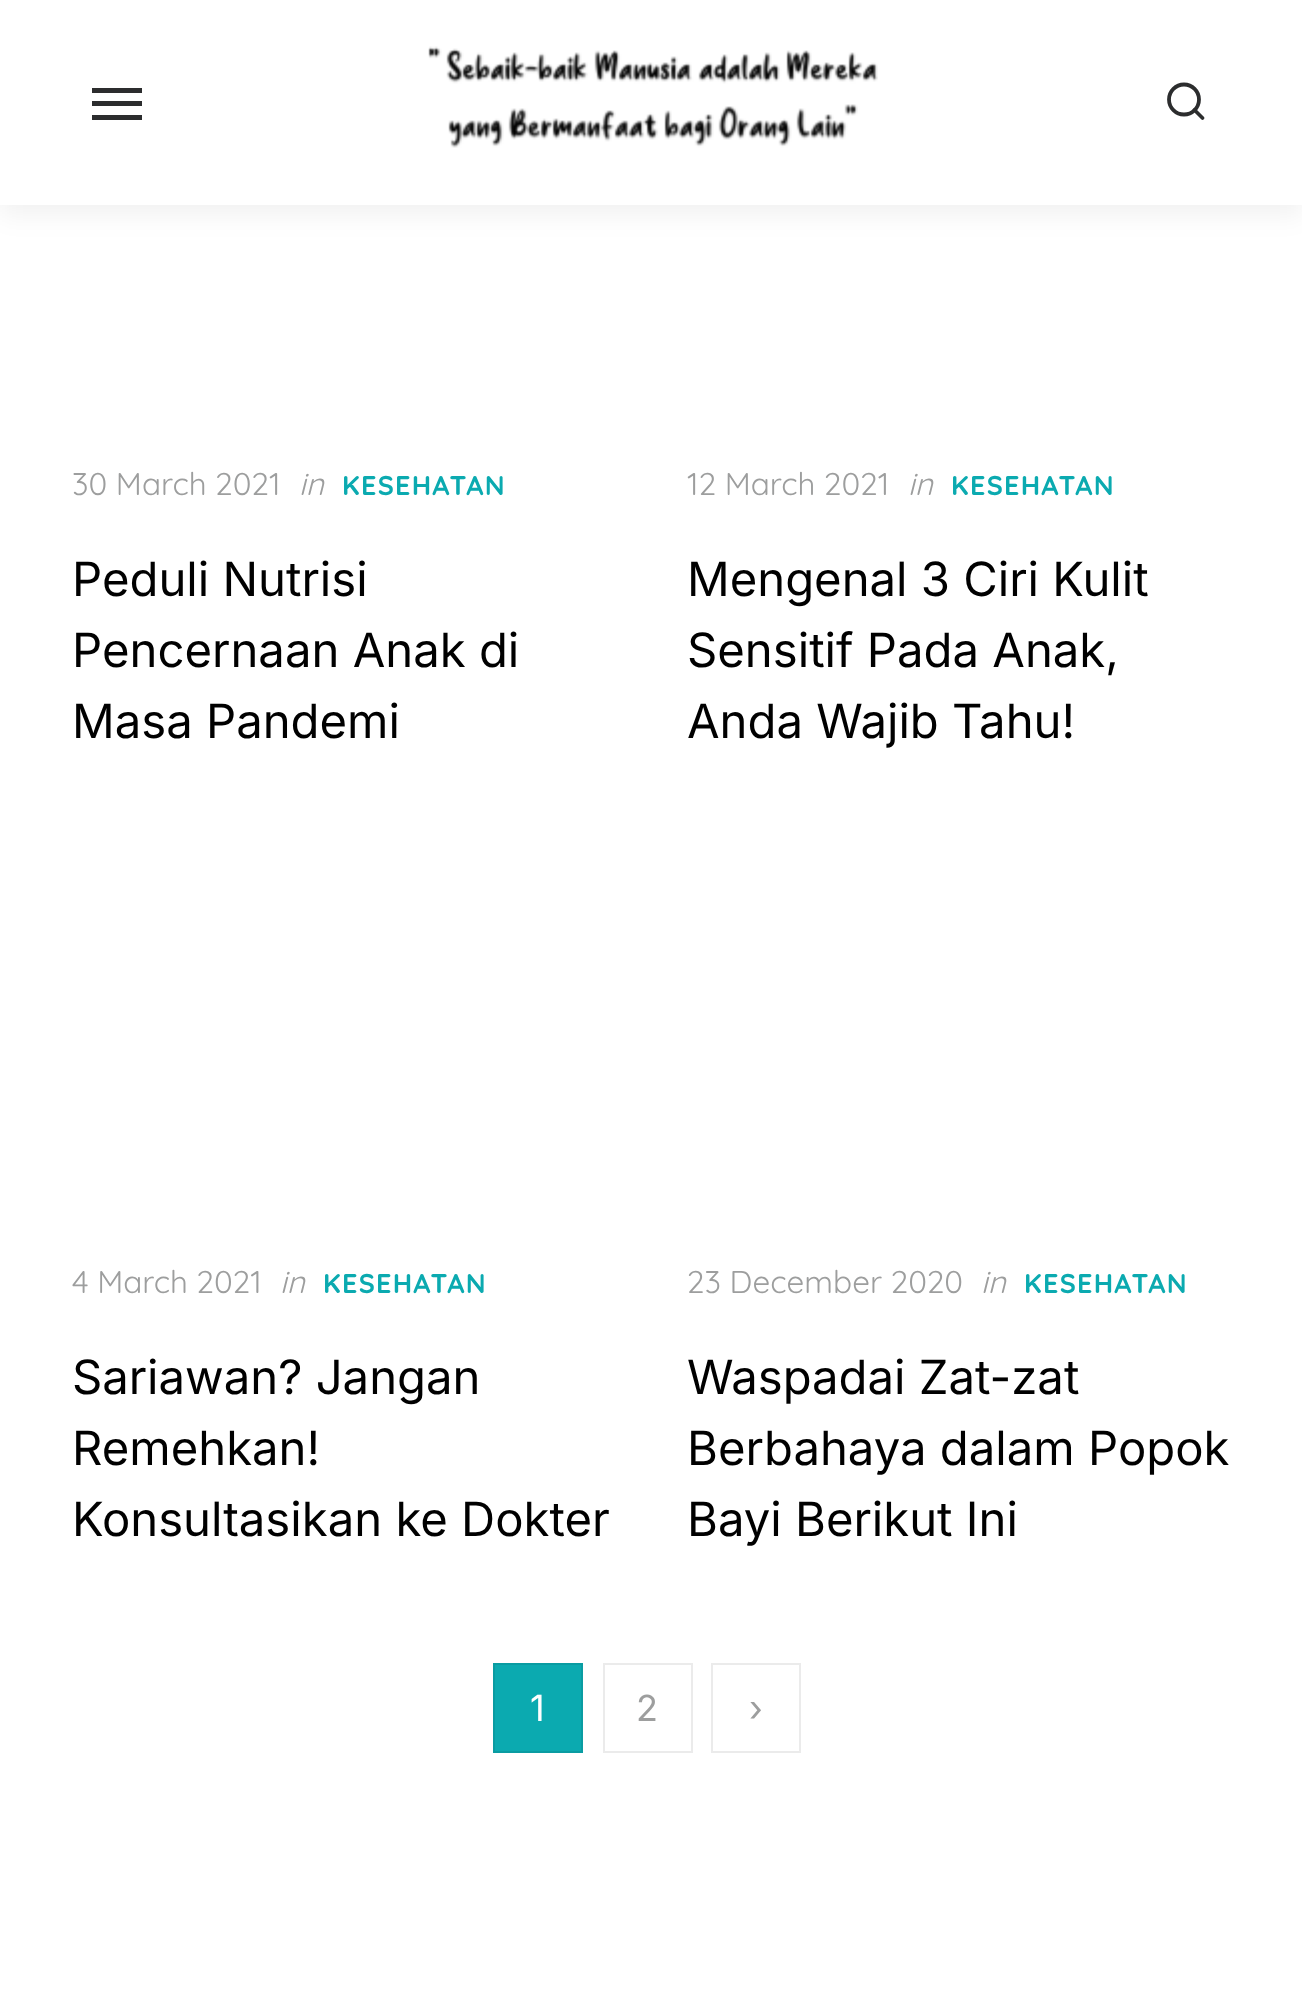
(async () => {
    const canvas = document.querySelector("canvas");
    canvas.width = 1302;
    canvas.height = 1994;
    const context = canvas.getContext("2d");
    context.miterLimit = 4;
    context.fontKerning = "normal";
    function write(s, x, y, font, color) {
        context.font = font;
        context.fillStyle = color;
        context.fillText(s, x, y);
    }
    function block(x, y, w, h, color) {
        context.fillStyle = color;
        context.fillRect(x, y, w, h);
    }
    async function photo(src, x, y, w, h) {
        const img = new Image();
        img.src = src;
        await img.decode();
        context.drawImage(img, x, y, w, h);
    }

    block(0, 0, 1302, 1994, "rgb(255, 255, 255)");
    context.fillStyle = "rgba(0, 0, 0, 0.06)";
    context.filter = "blur(13.5px)";
    context.beginPath();
    context.rect(0, 9, 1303, 205);
    context.fill();
    context.filter = "none";
    block(0, 0, 1302, 205, "rgb(255, 255, 255)");
    block(92, 101, 50, 5, "rgb(44, 45, 46)");
    block(92, 88, 50, 5, "rgb(44, 45, 46)");
    block(92, 115, 50, 5, "rgb(44, 45, 46)");
    await photo("media/1.png", 428, 46, 450, 102);
    context.beginPath();
    context.arc(1184, 99.5, 15, 0, Math.PI * 2);
    context.strokeStyle = "rgb(44, 45, 46)";
    context.lineWidth = 3.8;
    context.stroke();
    context.beginPath();
    context.moveTo(1202.5, 118);
    context.lineTo(1194.5, 110);
    context.lineCap = "round";
    context.lineJoin = "round";
    context.stroke();
    write("30 March 2021", 72, 495, "31.5px Quicksand", "rgb(157, 158, 158)");
    write("in", 299, 495, "italic 31.5px Quicksand", "rgb(157, 158, 158)");
    context.letterSpacing = "1.25px";
    write("KESEHATAN", 342, 495, "bold 27px Quicksand", "rgb(11, 170, 176)");
    context.letterSpacing = "0px";
    write("Peduli Nutrisi", 72, 596, "47.25px Inter", "rgb(0, 0, 0)");
    write("Pencernaan Anak di", 72, 667, "47.25px Inter", "rgb(0, 0, 0)");
    write("Masa Pandemi", 72, 738, "47.25px Inter", "rgb(0, 0, 0)");
    write("12 March 2021", 687, 495, "31.5px Quicksand", "rgb(157, 158, 158)");
    write("in", 908, 495, "italic 31.5px Quicksand", "rgb(157, 158, 158)");
    context.letterSpacing = "1.25px";
    write("KESEHATAN", 951, 495, "bold 27px Quicksand", "rgb(11, 170, 176)");
    context.letterSpacing = "0px";
    write("Mengenal 3 Ciri Kulit", 687, 596, "47.25px Inter", "rgb(0, 0, 0)");
    write("Sensitif Pada Anak,", 687, 667, "47.25px Inter", "rgb(0, 0, 0)");
    write("Anda Wajib Tahu!", 687, 738, "47.25px Inter", "rgb(0, 0, 0)");
    write("4 March 2021", 72, 1293, "31.5px Quicksand", "rgb(157, 158, 158)");
    write("in", 280, 1293, "italic 31.5px Quicksand", "rgb(157, 158, 158)");
    context.letterSpacing = "1.25px";
    write("KESEHATAN", 323, 1293, "bold 27px Quicksand", "rgb(11, 170, 176)");
    context.letterSpacing = "0px";
    write("Sariawan? Jangan", 72, 1394, "47.25px Inter", "rgb(0, 0, 0)");
    write("Remehkan!", 72, 1465, "47.25px Inter", "rgb(0, 0, 0)");
    write("Konsultasikan ke Dokter", 72, 1536, "47.25px Inter", "rgb(0, 0, 0)");
    write("23 December 2020", 687, 1293, "31.5px Quicksand", "rgb(157, 158, 158)");
    write("in", 981, 1293, "italic 31.5px Quicksand", "rgb(157, 158, 158)");
    context.letterSpacing = "1.25px";
    write("KESEHATAN", 1024, 1293, "bold 27px Quicksand", "rgb(11, 170, 176)");
    context.letterSpacing = "0px";
    write("Waspadai Zat-zat", 687, 1394, "47.25px Inter", "rgb(0, 0, 0)");
    write("Berbahaya dalam Popok", 687, 1465, "47.25px Inter", "rgb(0, 0, 0)");
    write("Bayi Berikut Ini", 687, 1536, "47.25px Inter", "rgb(0, 0, 0)");
    context.fillStyle = "rgb(11, 170, 176)";
    context.beginPath();
    context.rect(494, 1664, 88, 88);
    context.fill();
    context.strokeStyle = "rgb(10, 156, 162)";
    context.lineWidth = 2;
    context.lineJoin = "miter";
    context.stroke();
    write("1", 530, 1721, "36px Inter", "rgb(255, 255, 255)");
    context.strokeStyle = "rgb(235, 235, 235)";
    context.strokeRect(604, 1664, 88, 88);
    write("2", 636, 1721, "36px Inter", "rgb(157, 158, 158)");
    context.strokeRect(712, 1664, 88, 88);
    write("›", 749, 1721, "36px Inter", "rgb(157, 158, 158)");
})();
